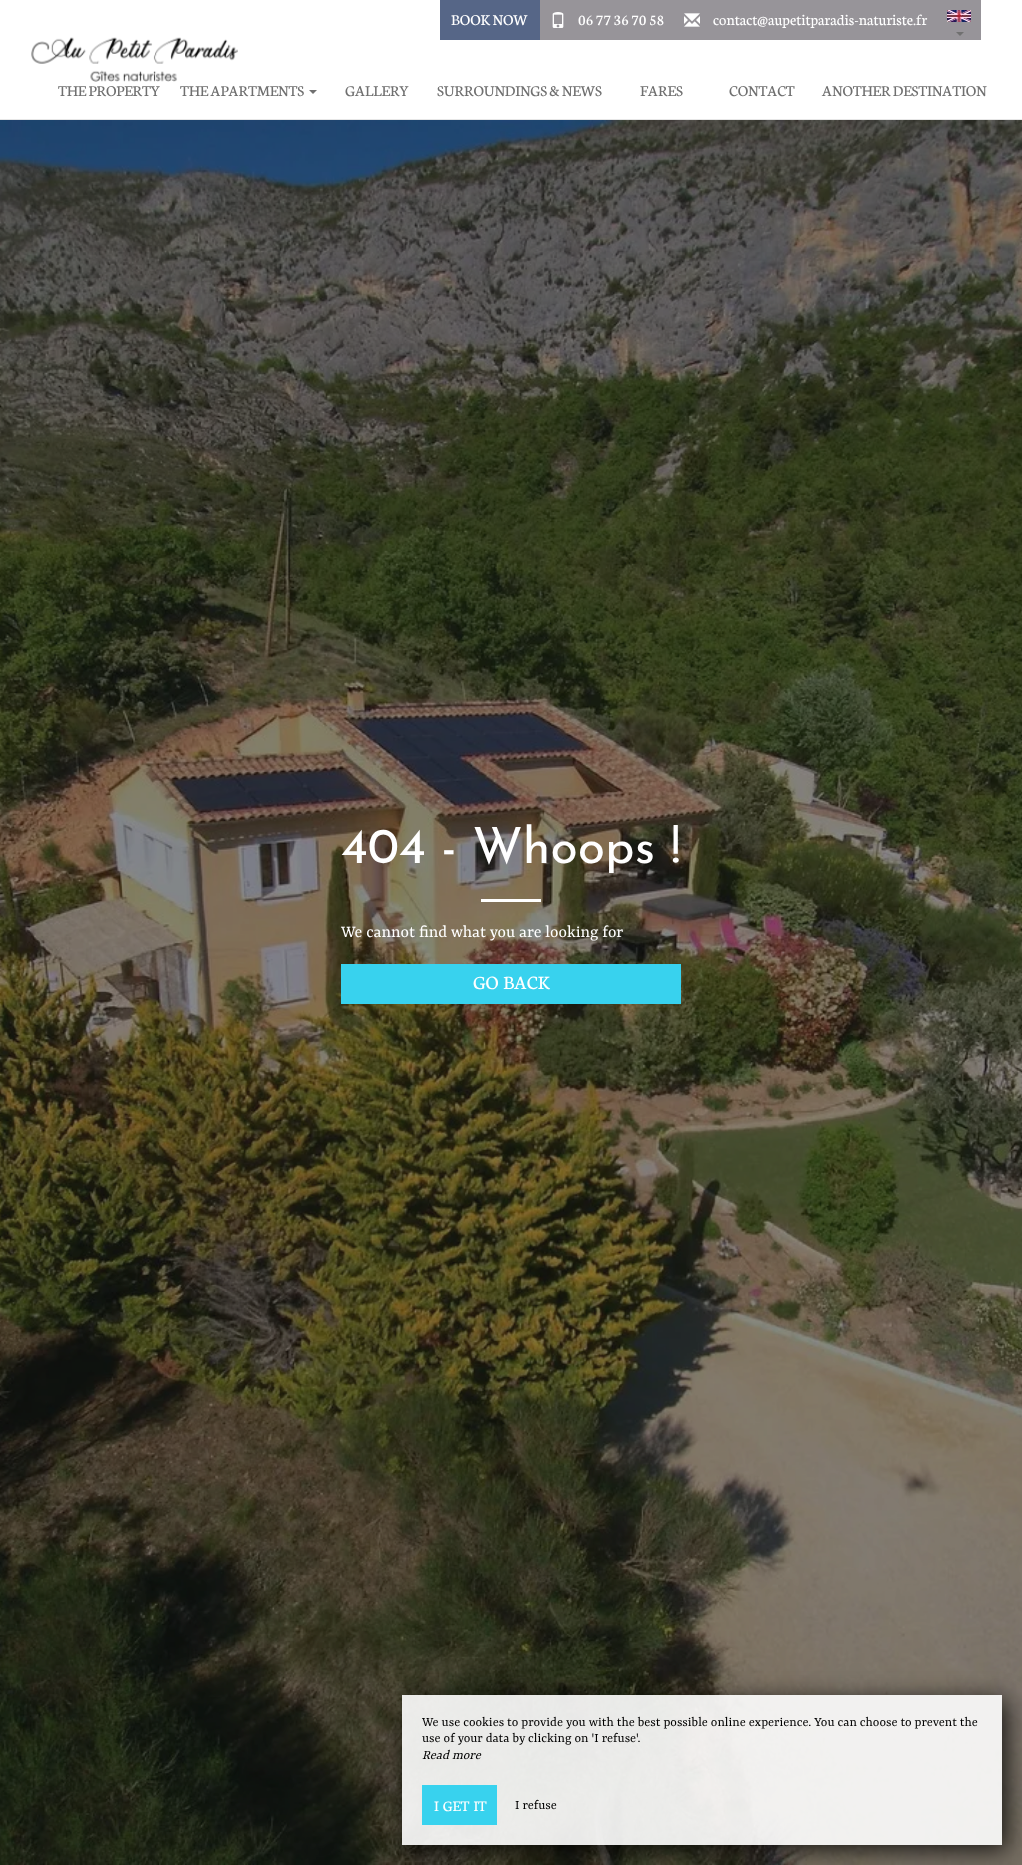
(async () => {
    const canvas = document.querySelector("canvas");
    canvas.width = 1022;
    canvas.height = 1865;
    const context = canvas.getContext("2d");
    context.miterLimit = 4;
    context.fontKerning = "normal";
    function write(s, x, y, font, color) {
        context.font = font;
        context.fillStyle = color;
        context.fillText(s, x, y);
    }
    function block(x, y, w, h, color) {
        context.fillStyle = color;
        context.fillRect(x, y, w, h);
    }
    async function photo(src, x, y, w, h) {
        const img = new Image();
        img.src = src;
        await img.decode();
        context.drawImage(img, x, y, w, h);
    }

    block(0, 0, 1022, 1865, "rgb(255, 255, 255)");
    block(0, 119, 1022, 1, "rgb(230, 230, 230)");
    block(540, 0, 441, 40, "rgb(151, 148, 153)");
    block(440, 0, 100, 40, "rgb(86, 102, 135)");
    write("BOOK NOW", 451, 25, "16px Neuton", "rgb(255, 255, 255)");
    await photo("media/1.png", 552, 12, 12, 16);
    write("06 77 36 70 58", 578, 25, "16px Neuton", "rgb(255, 255, 255)");
    await photo("media/2.png", 684, 13, 16, 14);
    write("contact@aupetitparadis-naturiste.fr", 713, 25, "16px Neuton", "rgb(255, 255, 255)");
    await photo("media/3.png", 947, 10, 24, 12);
    context.fillStyle = "rgb(112, 112, 112)";
    context.beginPath();
    context.moveTo(956, 32);
    context.lineTo(964, 32);
    context.lineTo(960, 36);
    context.closePath();
    context.fill();
    await photo("media/4.png", 31, 37, 207, 45);
    write("THE PROPERTY", 58, 96, "16px Neuton", "rgb(112, 112, 112)");
    write("THE APARTMENTS", 180, 96, "16px Neuton", "rgb(112, 112, 112)");
    context.beginPath();
    context.moveTo(309, 90);
    context.lineTo(317, 90);
    context.lineTo(313, 94);
    context.closePath();
    context.fill();
    write("GALLERY", 345, 96, "16px Neuton", "rgb(112, 112, 112)");
    write("SURROUNDINGS & NEWS", 437, 96, "16px Neuton", "rgb(112, 112, 112)");
    write("FARES", 640, 96, "16px Neuton", "rgb(112, 112, 112)");
    write("CONTACT", 729, 96, "16px Neuton", "rgb(112, 112, 112)");
    write("ANOTHER DESTINATION", 822, 96, "16px Neuton", "rgb(112, 112, 112)");
    await photo("media/5.png", 0, 120, 1022, 1745);
    write("404 - Whoops !", 341, 863, "50px Josefin Sans", "rgb(255, 255, 255)");
    block(481, 899, 60, 3, "rgb(255, 255, 255)");
    write("We cannot find what you are looking for", 341, 937, "18px Yrsa", "rgb(255, 255, 255)");
    block(341, 964, 340, 40, "rgb(56, 210, 238)");
    context.wordSpacing = "2px";
    write("GO BACK", 473, 989, "20px Neuton", "rgb(255, 255, 255)");
    context.save();
    context.beginPath();
    context.moveTo(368, 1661);
    context.lineTo(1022, 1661);
    context.lineTo(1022, 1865);
    context.lineTo(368, 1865);
    context.closePath();
    context.moveTo(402, 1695);
    context.lineTo(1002, 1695);
    context.lineTo(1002, 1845);
    context.lineTo(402, 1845);
    context.closePath();
    context.clip("evenodd");
    context.fillStyle = "rgba(0, 0, 0, 0.8)";
    context.filter = "blur(12.5px)";
    context.beginPath();
    context.rect(407, 1700, 600, 150);
    context.fill();
    context.filter = "none";
    context.restore();
    block(402, 1695, 600, 150, "rgba(255, 255, 255, 0.9)");
    context.wordSpacing = "0px";
    write("We use cookies to provide you with the best possible online experience. You can choose to prevent the", 422, 1726, "14px Yrsa", "rgb(0, 0, 0)");
    write("use of your data by clicking on 'I refuse'.", 422, 1742, "14px Yrsa", "rgb(0, 0, 0)");
    write("Read more", 422, 1759, "italic 14px Yrsa", "rgb(0, 0, 0)");
    block(422, 1785, 75, 40, "rgb(56, 210, 238)");
    context.wordSpacing = "2px";
    write("I GET IT", 434, 1811, "15.5px Neuton", "rgb(255, 255, 255)");
    context.wordSpacing = "0px";
    write("I refuse", 515, 1809, "14px Yrsa", "rgb(0, 0, 0)");
})();
